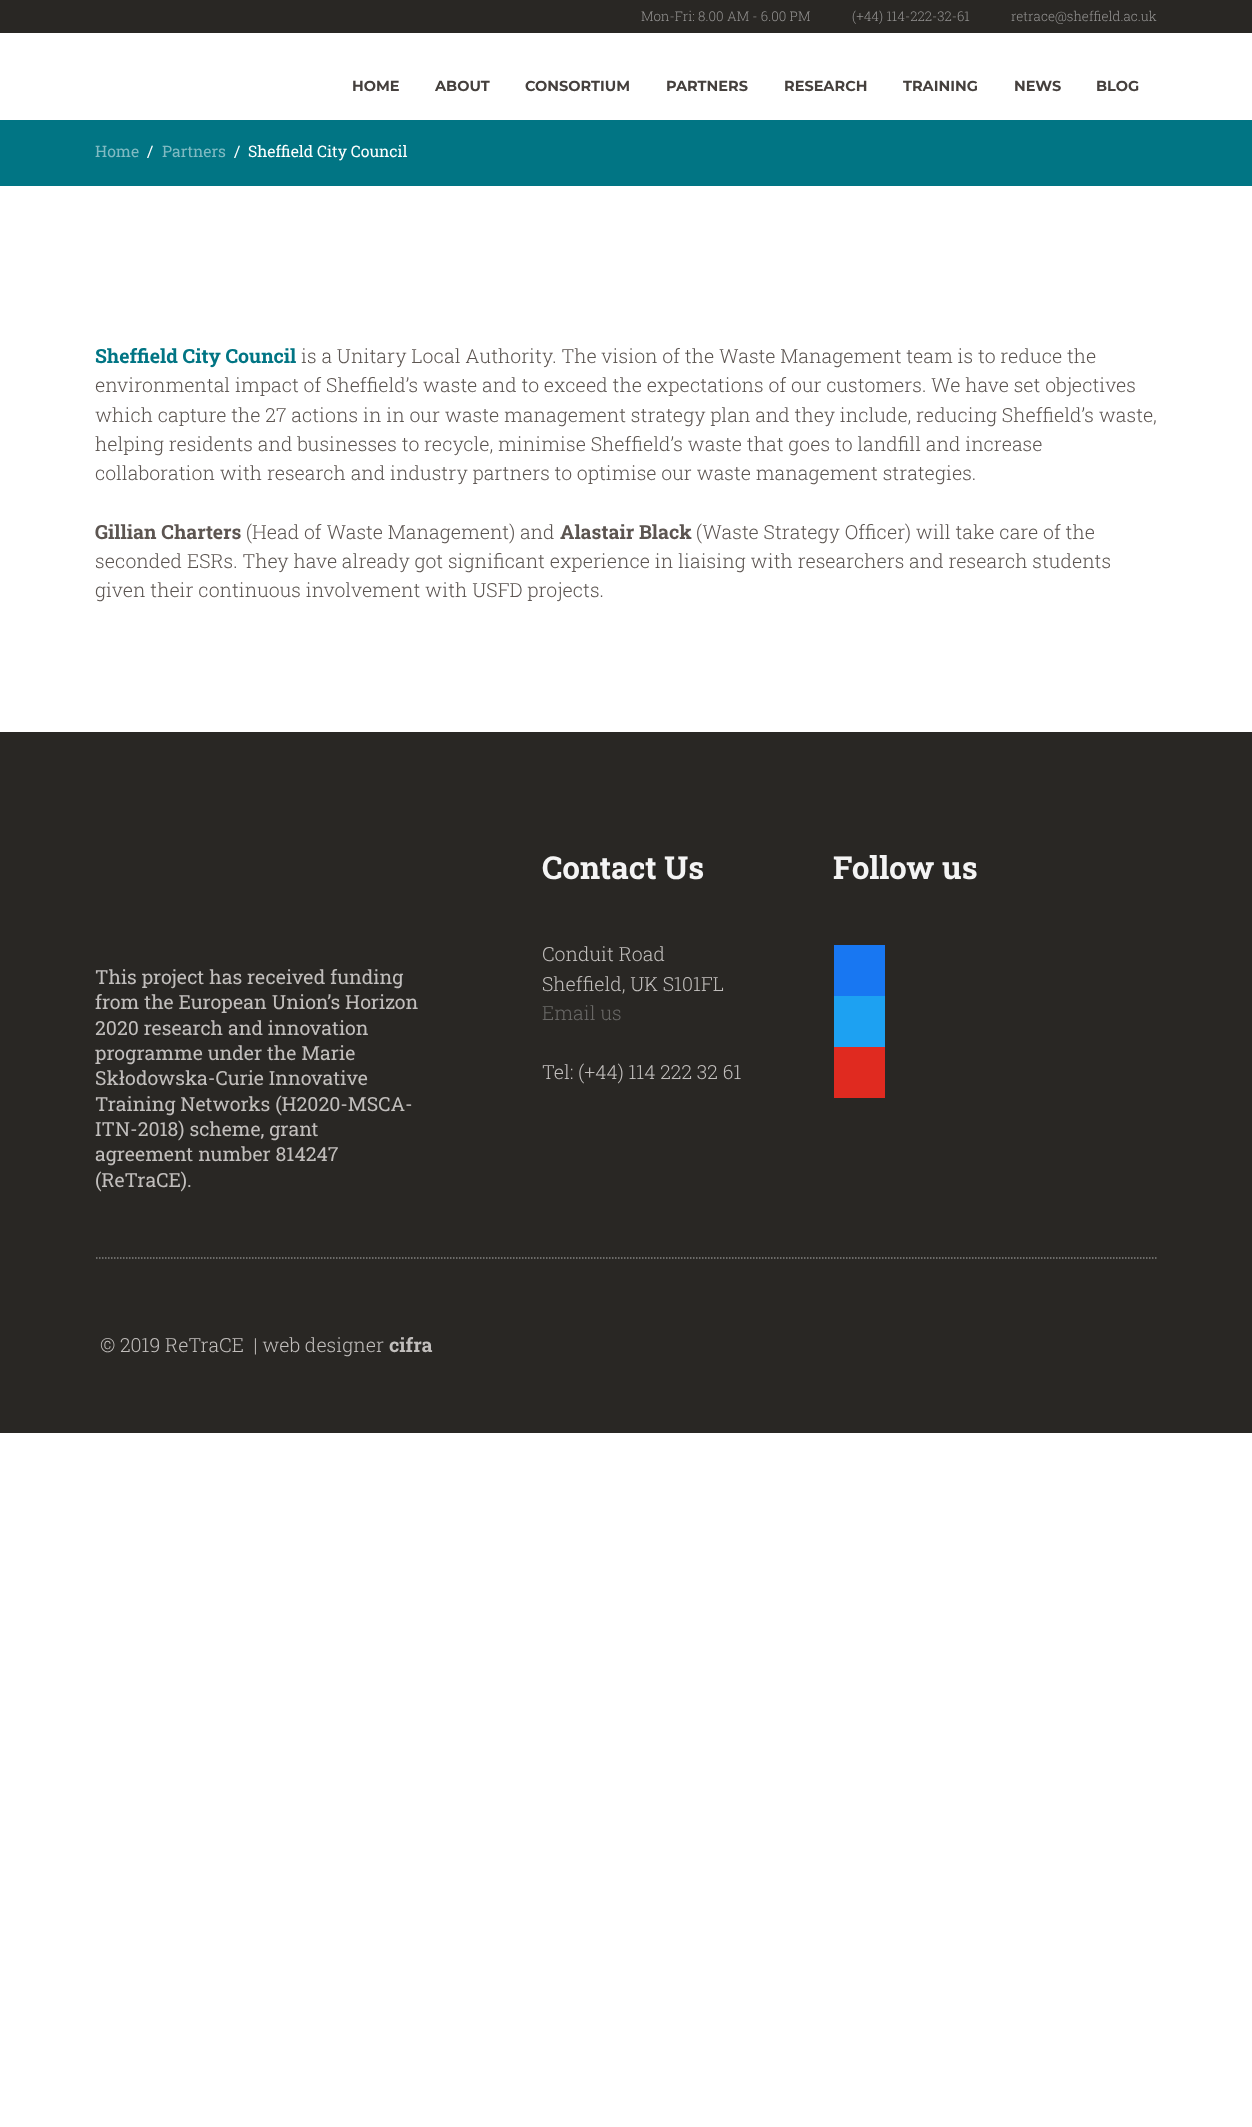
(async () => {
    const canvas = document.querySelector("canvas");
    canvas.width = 1252;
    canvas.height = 2127;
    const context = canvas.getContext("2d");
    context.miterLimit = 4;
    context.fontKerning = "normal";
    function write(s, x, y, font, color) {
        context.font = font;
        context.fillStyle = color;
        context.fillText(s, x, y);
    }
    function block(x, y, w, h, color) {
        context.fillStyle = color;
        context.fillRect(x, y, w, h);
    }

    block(0, 0, 1252, 2127, "rgb(255, 255, 255)");
    block(0, 0, 1252, 33, "rgb(41, 39, 36)");
    write("Mon-Fri: 8.00 AM - 6.00 PM", 641, 21, "300 13.4px Roboto Slab", "rgb(148, 147, 146)");
    write("(+44) 114-222-32-61", 852, 21, "300 13.4px Roboto Slab", "rgb(148, 147, 146)");
    write("retrace@sheffield.ac.uk", 1011, 21, "300 13.4px Roboto Slab", "rgb(148, 147, 146)");
    write("HOME", 352, 91, "bold 14.5px Montserrat", "rgb(69, 64, 61)");
    write("ABOUT", 435, 91, "bold 14.5px Montserrat", "rgb(69, 64, 61)");
    write("CONSORTIUM", 525, 91, "bold 14.5px Montserrat", "rgb(69, 64, 61)");
    write("PARTNERS", 666, 91, "bold 14.5px Montserrat", "rgb(69, 64, 61)");
    write("RESEARCH", 784, 91, "bold 14.5px Montserrat", "rgb(69, 64, 61)");
    write("TRAINING", 903, 91, "bold 14.5px Montserrat", "rgb(69, 64, 61)");
    write("NEWS", 1014, 91, "bold 14.5px Montserrat", "rgb(69, 64, 61)");
    write("BLOG", 1096, 91, "bold 14.5px Montserrat", "rgb(69, 64, 61)");
    block(0, 120, 1252, 66, "rgb(1, 117, 132)");
    write("Home", 95, 157, "15.8px Roboto Slab", "rgb(128, 186, 194)");
    write("/", 147, 157, "15.8px Roboto Slab", "rgb(255, 255, 255)");
    write("Partners", 162, 157, "15.8px Roboto Slab", "rgb(128, 186, 194)");
    write("/", 234, 157, "15.8px Roboto Slab", "rgb(255, 255, 255)");
    write("Sheffield City Council", 248, 157, "15.8px Roboto Slab", "rgb(255, 255, 255)");
    write("Sheffield City Council", 95, 363, "bold 19.5px Roboto Slab", "rgb(1, 117, 132)");
    write("is a Unitary Local Authority. The vision of the Waste Management team is to reduce the", 301, 363, "300 19.5px Roboto Slab", "rgb(92, 85, 81)");
    write("environmental impact of Sheffield’s waste and to exceed the expectations of our customers. We have set objectives", 95, 392, "300 19.5px Roboto Slab", "rgb(92, 85, 81)");
    write("which capture the 27 actions in in our waste management strategy plan and they include, reducing Sheffield’s waste,", 95, 422, "300 19.5px Roboto Slab", "rgb(92, 85, 81)");
    write("helping residents and businesses to recycle, minimise Sheffield’s waste that goes to landfill and increase", 95, 451, "300 19.5px Roboto Slab", "rgb(92, 85, 81)");
    write("collaboration with research and industry partners to optimise our waste management strategies.", 95, 480, "300 19.5px Roboto Slab", "rgb(92, 85, 81)");
    write("Gillian Charters", 95, 539, "bold 19.5px Roboto Slab", "rgb(92, 85, 81)");
    write("(Head of Waste Management) and", 246, 539, "300 19.5px Roboto Slab", "rgb(92, 85, 81)");
    write("Alastair Black", 560, 539, "bold 19.5px Roboto Slab", "rgb(92, 85, 81)");
    write("(Waste Strategy Officer) will take care of the", 696, 539, "300 19.5px Roboto Slab", "rgb(92, 85, 81)");
    write("seconded ESRs. They have already got significant experience in liaising with researchers and research students", 95, 568, "300 19.5px Roboto Slab", "rgb(92, 85, 81)");
    write("given their continuous involvement with USFD projects.", 95, 597, "300 19.5px Roboto Slab", "rgb(92, 85, 81)");
    block(0, 732, 1252, 701, "rgb(41, 39, 36)");
    write("This project has received funding", 95, 984, "19.5px Roboto Slab", "rgb(193, 190, 188)");
    write("from the European Union’s Horizon", 95, 1009, "19.5px Roboto Slab", "rgb(193, 190, 188)");
    write("2020 research and innovation", 95, 1035, "19.5px Roboto Slab", "rgb(193, 190, 188)");
    write("programme under the Marie", 95, 1060, "19.5px Roboto Slab", "rgb(193, 190, 188)");
    write("Skłodowska-Curie Innovative", 95, 1085, "19.5px Roboto Slab", "rgb(193, 190, 188)");
    write("Training Networks (H2020-MSCA-", 95, 1111, "19.5px Roboto Slab", "rgb(193, 190, 188)");
    write("ITN-2018) scheme, grant", 95, 1136, "19.5px Roboto Slab", "rgb(193, 190, 188)");
    write("agreement number 814247", 95, 1161, "19.5px Roboto Slab", "rgb(193, 190, 188)");
    write("(ReTraCE).", 95, 1187, "19.5px Roboto Slab", "rgb(193, 190, 188)");
    write("Contact Us", 542, 879, "bold 31.5px Roboto Slab", "rgb(244, 244, 244)");
    write("Conduit Road", 542, 961, "300 19.5px Roboto Slab", "rgb(193, 190, 188)");
    write("Sheffield, UK S101FL", 542, 991, "300 19.5px Roboto Slab", "rgb(193, 190, 188)");
    write("Email us", 542, 1020, "300 19.5px Roboto Slab", "rgb(105, 104, 102)");
    write("Tel: (+44) 114 222 32 61", 542, 1079, "300 19.5px Roboto Slab", "rgb(193, 190, 188)");
    write("Follow us", 833, 879, "bold 31.5px Roboto Slab", "rgb(244, 244, 244)");
    block(834, 945, 51, 51, "rgb(24, 119, 242)");
    block(834, 996, 51, 51, "rgb(29, 161, 242)");
    block(834, 1047, 51, 51, "rgb(224, 42, 32)");
    context.beginPath();
    context.moveTo(96, 1258);
    context.lineTo(1158, 1258);
    context.strokeStyle = "rgb(131, 130, 128)";
    context.lineWidth = 1.5;
    context.setLineDash([1.5, 1.5]);
    context.stroke();
    write("© 2019 ReTraCE  | web designer", 100, 1352, "300 19.5px Roboto Slab", "rgb(193, 190, 188)");
    write("cifra", 389, 1352, "bold 19.5px Roboto Slab", "rgb(193, 190, 188)");
})();
